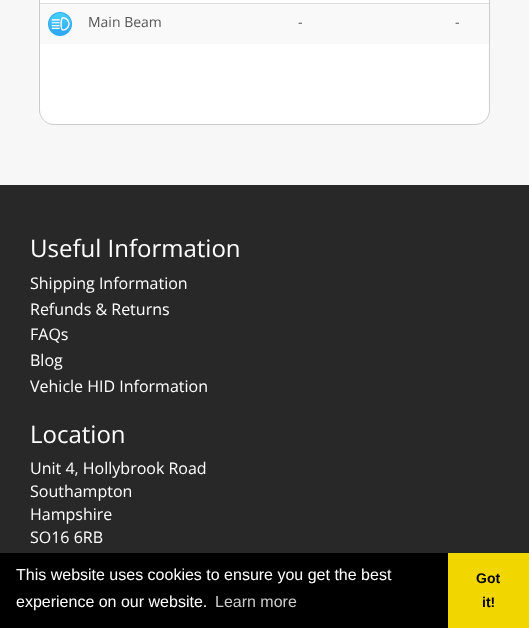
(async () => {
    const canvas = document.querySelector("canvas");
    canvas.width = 529;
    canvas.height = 628;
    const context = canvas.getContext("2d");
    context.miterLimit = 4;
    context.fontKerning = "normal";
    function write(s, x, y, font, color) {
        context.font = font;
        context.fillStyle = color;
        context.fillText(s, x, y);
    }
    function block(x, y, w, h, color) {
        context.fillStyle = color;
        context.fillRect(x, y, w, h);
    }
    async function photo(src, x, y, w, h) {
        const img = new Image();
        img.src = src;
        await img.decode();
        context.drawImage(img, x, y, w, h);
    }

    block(0, 0, 529, 628, "rgb(247, 247, 247)");
    context.fillStyle = "rgb(255, 255, 255)";
    context.beginPath();
    context.moveTo(39.5, -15.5);
    context.lineTo(489.5, -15.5);
    context.lineTo(489.5, 110);
    context.bezierCurveTo(489.5, 118, 483, 124.5, 475, 124.5);
    context.lineTo(54, 124.5);
    context.bezierCurveTo(46, 124.5, 39.5, 118, 39.5, 110);
    context.closePath();
    context.fill();
    context.strokeStyle = "rgb(204, 204, 204)";
    context.stroke();
    block(40, 4, 449, 40, "rgb(249, 249, 249)");
    await photo("media/1.png", 48, 12, 24, 24);
    write("Main Beam", 88, 27, "14px Open Sans", "rgb(85, 85, 85)");
    write("-", 298, 27, "14px Open Sans", "rgb(85, 85, 85)");
    block(40, 3, 449, 1, "rgb(221, 221, 221)");
    write("-", 455, 27, "14px Open Sans", "rgb(85, 85, 85)");
    block(0, 185, 529, 368, "rgb(40, 40, 40)");
    write("Useful Information", 30, 257, "24px Open Sans", "rgb(255, 255, 255)");
    write("Shipping Information", 30, 289, "16px Open Sans", "rgb(255, 255, 255)");
    write("Refunds & Returns", 30, 315, "16px Open Sans", "rgb(255, 255, 255)");
    write("FAQs", 30, 340, "16px Open Sans", "rgb(255, 255, 255)");
    write("Blog", 30, 366, "16px Open Sans", "rgb(255, 255, 255)");
    write("Vehicle HID Information", 30, 392, "16px Open Sans", "rgb(255, 255, 255)");
    write("Location", 30, 443, "24px Open Sans", "rgb(255, 255, 255)");
    write("Unit 4, Hollybrook Road", 30, 474, "16px Open Sans", "rgb(255, 255, 255)");
    write("Southampton", 30, 497, "16px Open Sans", "rgb(255, 255, 255)");
    write("Hampshire", 30, 520, "16px Open Sans", "rgb(255, 255, 255)");
    write("SO16 6RB", 30, 543, "16px Open Sans", "rgb(255, 255, 255)");
    block(0, 553, 448, 75, "rgb(0, 0, 0)");
    write("This website uses cookies to ensure you get the best", 16, 580, "16px Liberation Sans", "rgb(255, 255, 255)");
    write("experience on our website.", 16, 607, "16px Liberation Sans", "rgb(255, 255, 255)");
    write("Learn more", 215, 607, "16px Liberation Sans", "rgb(204, 204, 204)");
    block(448, 553, 81, 75, "rgb(241, 214, 0)");
    write("Got", 476, 583, "bold 14px Liberation Sans", "rgb(0, 0, 0)");
    write("it!", 482, 607, "bold 14px Liberation Sans", "rgb(0, 0, 0)");
})();
